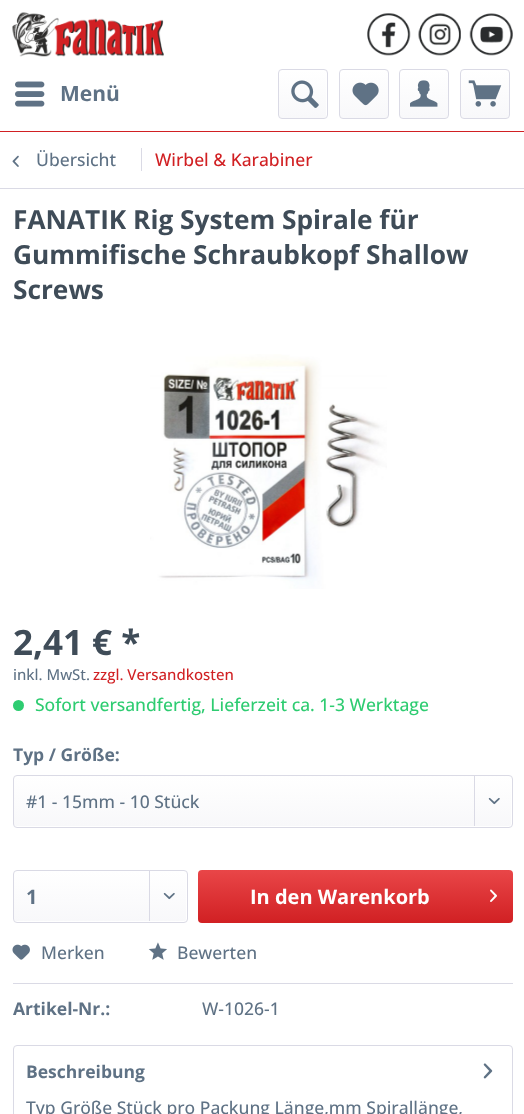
(async () => {
    const canvas = document.querySelector("canvas");
    canvas.width = 524;
    canvas.height = 1114;
    const context = canvas.getContext("2d");
    context.miterLimit = 4;
    context.fontKerning = "normal";
    function write(s, x, y, font, color) {
        context.font = font;
        context.fillStyle = color;
        context.fillText(s, x, y);
    }
    function block(x, y, w, h, color) {
        context.fillStyle = color;
        context.fillRect(x, y, w, h);
    }
    async function photo(src, x, y, w, h) {
        const img = new Image();
        img.src = src;
        await img.decode();
        context.drawImage(img, x, y, w, h);
    }
    let gradient;

    block(0, 0, 524, 1114, "rgb(255, 255, 255)");
    block(0, 131, 524, 1, "rgb(209, 32, 35)");
    await photo("media/1.png", 12, 12, 152, 45);
    await photo("media/2.png", 367, 13, 44, 43);
    await photo("media/3.png", 418, 13, 43, 43);
    await photo("media/4.png", 469, 13, 44, 43);
    await photo("media/5.png", 15, 81, 30, 26);
    write("Menü", 60, 101, "bold 21px Open Sans", "rgb(95, 114, 133)");
    gradient = context.createLinearGradient(303, 70, 303, 118);
    gradient.addColorStop(0, "rgb(255, 255, 255)");
    gradient.addColorStop(1, "rgb(248, 248, 250)");
    context.fillStyle = gradient;
    context.beginPath();
    context.roundRect(279, 70, 47, 48, 2.5);
    context.fill();
    context.beginPath();
    context.roundRect(278.5, 69.5, 49, 49, 3.5);
    context.strokeStyle = "rgb(218, 218, 229)";
    context.stroke();
    await photo("media/6.png", 291, 80, 28, 28);
    gradient = context.createLinearGradient(364, 70, 364, 118);
    gradient.addColorStop(0, "rgb(255, 255, 255)");
    gradient.addColorStop(1, "rgb(248, 248, 250)");
    context.fillStyle = gradient;
    context.beginPath();
    context.roundRect(340, 70, 48, 48, 2.5);
    context.fill();
    context.beginPath();
    context.roundRect(339.5, 69.5, 49, 49, 3.5);
    context.stroke();
    await photo("media/7.png", 352, 82, 27, 24);
    gradient = context.createLinearGradient(424, 70, 424, 118);
    gradient.addColorStop(0, "rgb(255, 255, 255)");
    gradient.addColorStop(1, "rgb(248, 248, 250)");
    context.fillStyle = gradient;
    context.beginPath();
    context.roundRect(400, 70, 48, 48, 2.5);
    context.fill();
    context.beginPath();
    context.roundRect(399.5, 69.5, 49, 49, 3.5);
    context.stroke();
    await photo("media/8.png", 410, 80, 28, 27);
    gradient = context.createLinearGradient(485, 70, 485, 118);
    gradient.addColorStop(0, "rgb(255, 255, 255)");
    gradient.addColorStop(1, "rgb(248, 248, 250)");
    context.fillStyle = gradient;
    context.beginPath();
    context.roundRect(461, 70, 48, 48, 2.5);
    context.fill();
    context.beginPath();
    context.roundRect(460.5, 69.5, 49, 49, 3.5);
    context.stroke();
    await photo("media/9.png", 468, 80, 34, 27);
    block(0, 188, 524, 1, "rgb(218, 218, 229)");
    await photo("media/10.png", 12, 155, 7, 12);
    write("Übersicht", 36, 166, "500 17.5px Open Sans", "rgb(95, 114, 133)");
    block(141, 148, 1, 23, "rgb(218, 218, 229)");
    write("Wirbel & Karabiner", 155, 166, "500 17.5px Open Sans", "rgb(209, 32, 35)");
    write("FANATIK Rig System Spirale für", 13, 229, "bold 26.25px Open Sans", "rgb(63, 76, 88)");
    write("Gummifische Schraubkopf Shallow", 13, 264, "bold 26.25px Open Sans", "rgb(63, 76, 88)");
    write("Screws", 13, 299, "bold 26.25px Open Sans", "rgb(63, 76, 88)");
    await photo("media/11.png", 150, 354, 237, 235);
    write("2,41 € *", 13, 655, "bold 35px Open Sans", "rgb(63, 76, 88)");
    write("inkl. MwSt.", 13, 680, "500 15px Open Sans", "rgb(95, 114, 133)");
    write("zzgl. Versandkosten", 93, 680, "500 15px Open Sans", "rgb(209, 32, 35)");
    context.fillStyle = "rgb(46, 204, 113)";
    context.beginPath();
    context.arc(18.5, 705.5, 5.5, 0, Math.PI * 2);
    context.fill();
    write("Sofort versandfertig, Lieferzeit ca. 1-3 Werktage", 35, 711, "500 17.5px Open Sans", "rgb(46, 204, 113)");
    write("Typ / Größe:", 13, 761, "bold 17.5px Open Sans", "rgb(95, 114, 133)");
    gradient = context.createLinearGradient(263, 776, 263, 826);
    gradient.addColorStop(0, "rgb(255, 255, 255)");
    gradient.addColorStop(1, "rgb(248, 248, 250)");
    context.fillStyle = gradient;
    context.beginPath();
    context.roundRect(14, 776, 497, 50, 2.5);
    context.fill();
    context.beginPath();
    context.roundRect(13.5, 775.5, 499, 52, 3.5);
    context.stroke();
    write("#1 - 15mm - 10 Stück", 26, 808, "500 17.5px Open Sans", "rgb(95, 114, 133)");
    block(474, 776, 1, 50, "rgb(218, 218, 229)");
    await photo("media/12.png", 488, 797, 12, 8);
    gradient = context.createLinearGradient(100, 871, 100, 921);
    gradient.addColorStop(0, "rgb(255, 255, 255)");
    gradient.addColorStop(1, "rgb(248, 248, 250)");
    context.fillStyle = gradient;
    context.beginPath();
    context.roundRect(14, 871, 172, 50, 2.5);
    context.fill();
    context.beginPath();
    context.roundRect(13.5, 870.5, 174, 52, 3.5);
    context.stroke();
    write("1", 26, 904, "bold 20px Open Sans", "rgb(95, 114, 133)");
    block(149, 871, 1, 50, "rgb(218, 218, 229)");
    await photo("media/12.png", 163, 892, 12, 8);
    gradient = context.createLinearGradient(355, 870, 355, 923);
    gradient.addColorStop(0, "rgb(233, 70, 72)");
    gradient.addColorStop(1, "rgb(209, 32, 35)");
    context.fillStyle = gradient;
    context.beginPath();
    context.roundRect(198, 870, 315, 53, 4);
    context.fill();
    write("In den Warenkorb", 250, 904, "bold 20px Open Sans", "rgb(255, 255, 255)");
    await photo("media/13.png", 490, 889, 7, 13);
    block(13, 983, 500, 1, "rgb(218, 218, 229)");
    await photo("media/14.png", 12, 944, 18, 16);
    write("Merken", 41, 959, "500 17.5px Open Sans", "rgb(95, 114, 133)");
    await photo("media/15.png", 148, 942, 19, 18);
    write("Bewerten", 177, 959, "500 17.5px Open Sans", "rgb(95, 114, 133)");
    write("Artikel-Nr.:", 13, 1015, "bold 17.5px Open Sans", "rgb(95, 114, 133)");
    write("W-1026-1", 202, 1015, "500 17.5px Open Sans", "rgb(95, 114, 133)");
    context.beginPath();
    context.roundRect(13.5, 1045.5, 499, 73, 3.5);
    context.stroke();
    write("Beschreibung", 26, 1078, "bold 17.5px Open Sans", "rgb(95, 114, 133)");
    await photo("media/16.png", 483, 1063, 10, 16);
    write("Typ Größe Stück pro Packung Länge,mm Spirallänge,", 26, 1114, "500 17.5px Open Sans", "rgb(95, 114, 133)");
})();
